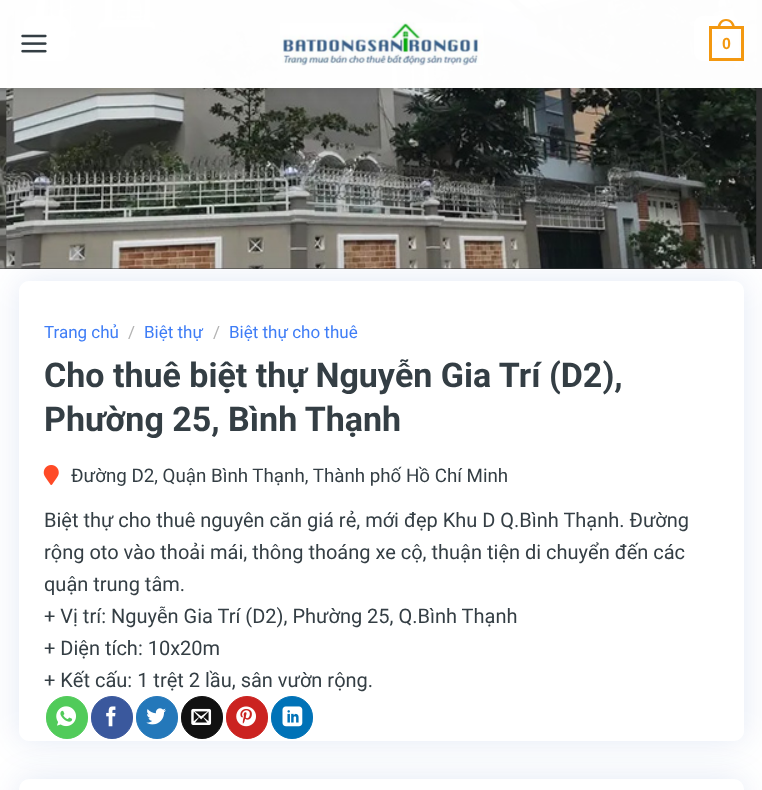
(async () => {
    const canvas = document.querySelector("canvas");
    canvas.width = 762;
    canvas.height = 790;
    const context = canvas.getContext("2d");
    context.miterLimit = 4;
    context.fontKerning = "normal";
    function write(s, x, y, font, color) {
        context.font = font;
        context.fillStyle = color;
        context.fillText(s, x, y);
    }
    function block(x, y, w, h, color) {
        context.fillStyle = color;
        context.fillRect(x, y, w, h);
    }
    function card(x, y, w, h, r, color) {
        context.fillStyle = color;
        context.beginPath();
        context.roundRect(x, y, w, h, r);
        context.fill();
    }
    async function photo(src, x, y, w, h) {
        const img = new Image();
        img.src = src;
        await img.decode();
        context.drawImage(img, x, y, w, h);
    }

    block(0, 0, 762, 790, "rgb(255, 255, 255)");
    block(0, 0, 762, 269, "rgb(51, 51, 51)");
    await photo("media/4.png", 6, 0, 751, 269);
    await photo("media/3.png", 0, 0, 7, 269);
    card(24, 16, 45, 45, 9, "rgb(255, 255, 255)");
    context.fillStyle = "rgb(63, 125, 246)";
    context.beginPath();
    context.moveTo(39.5, 39);
    context.lineTo(48.5, 48);
    context.lineTo(50, 46);
    context.lineTo(43, 39);
    context.lineTo(50, 31.5);
    context.lineTo(48.5, 29.5);
    context.closePath();
    context.fill();
    card(694, 16, 45, 45, 9, "rgb(255, 255, 255)");
    context.fillStyle = "rgb(63, 125, 246)";
    context.beginPath();
    context.moveTo(723, 39);
    context.lineTo(714, 29.5);
    context.lineTo(712.5, 31.5);
    context.lineTo(719.5, 39);
    context.lineTo(712.5, 46);
    context.lineTo(714, 48);
    context.closePath();
    context.fill();
    context.save();
    context.beginPath();
    context.moveTo(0, 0);
    context.lineTo(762, 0);
    context.lineTo(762, 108);
    context.lineTo(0, 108);
    context.closePath();
    context.moveTo(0, 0);
    context.lineTo(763, 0);
    context.lineTo(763, 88);
    context.lineTo(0, 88);
    context.closePath();
    context.clip("evenodd");
    context.fillStyle = "rgba(0, 0, 0, 0.15)";
    context.filter = "blur(6px)";
    context.beginPath();
    context.rect(1, 1, 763, 88);
    context.fill();
    context.filter = "none";
    context.restore();
    block(0, 0, 762, 88, "rgba(255, 255, 255, 0.9)");
    block(0, 0, 762, 88, "rgba(255, 255, 255, 0.9)");
    await photo("media/1.png", 21, 34, 26, 19);
    await photo("media/2.png", 280, 22, 203, 44);
    context.strokeStyle = "rgb(243, 152, 16)";
    context.lineWidth = 3;
    context.strokeRect(710.5, 27.5, 32, 32);
    context.fillStyle = "rgb(243, 152, 16)";
    context.beginPath();
    context.moveTo(726, 19);
    context.bezierCurveTo(732, 19, 735, 23.5, 735, 29);
    context.lineTo(717.5, 29);
    context.bezierCurveTo(717.5, 23.5, 720.5, 19, 726, 19);
    context.closePath();
    context.moveTo(726, 21);
    context.bezierCurveTo(730.5, 21, 732.5, 25, 732.5, 29);
    context.lineTo(720, 29);
    context.bezierCurveTo(720, 25, 722, 21, 726, 21);
    context.closePath();
    context.fill("evenodd");
    write("0", 722, 49, "bold 16px Liberation Sans", "rgb(243, 152, 16)");
    context.save();
    context.beginPath();
    context.moveTo(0, 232);
    context.lineTo(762, 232);
    context.lineTo(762, 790);
    context.lineTo(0, 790);
    context.closePath();
    context.moveTo(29, 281);
    context.lineTo(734, 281);
    context.bezierCurveTo(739.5, 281, 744, 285.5, 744, 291);
    context.lineTo(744, 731);
    context.bezierCurveTo(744, 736.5, 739.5, 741, 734, 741);
    context.lineTo(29, 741);
    context.bezierCurveTo(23.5, 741, 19, 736.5, 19, 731);
    context.lineTo(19, 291);
    context.bezierCurveTo(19, 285.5, 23.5, 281, 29, 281);
    context.closePath();
    context.clip("evenodd");
    context.fillStyle = "rgba(22, 73, 172, 0.12)";
    context.filter = "blur(16px)";
    context.beginPath();
    context.roundRect(19, 281, 725, 460, 10);
    context.fill();
    context.filter = "none";
    context.restore();
    write("Trang chủ", 44, 338, "17px Roboto", "rgb(63, 125, 246)");
    write("/", 128, 338, "17px Roboto", "rgb(178, 178, 178)");
    write("Biệt thự", 144, 338, "17px Roboto", "rgb(63, 125, 246)");
    write("/", 213, 338, "17px Roboto", "rgb(178, 178, 178)");
    write("Biệt thự cho thuê", 229, 338, "17px Roboto", "rgb(63, 125, 246)");
    write("Cho thuê biệt thự Nguyễn Gia Trí (D2),", 44, 387, "bold 34px Roboto", "rgb(52, 62, 68)");
    write("Phường 25, Bình Thạnh", 44, 431, "bold 34px Roboto", "rgb(52, 62, 68)");
    await photo("media/5.png", 43, 465, 16, 20);
    write("Đường D2, Quận Bình Thạnh, Thành phố Hồ Chí Minh", 71, 482, "18.75px Roboto", "rgb(52, 62, 68)");
    write("Biệt thự cho thuê nguyên căn giá rẻ, mới đẹp Khu D Q.Bình Thạnh. Đường", 44, 527, "20px Roboto", "rgb(52, 62, 68)");
    write("rộng oto vào thoải mái, thông thoáng xe cộ, thuận tiện di chuyển đến các", 44, 559, "20px Roboto", "rgb(52, 62, 68)");
    write("quận trung tâm.", 44, 591, "20px Roboto", "rgb(52, 62, 68)");
    write("+ Vị trí: Nguyễn Gia Trí (D2), Phường 25, Q.Bình Thạnh", 44, 623, "20px Roboto", "rgb(52, 62, 68)");
    write("+ Diện tích: 10x20m", 44, 655, "20px Roboto", "rgb(52, 62, 68)");
    write("+ Kết cấu: 1 trệt 2 lầu, sân vườn rộng.", 44, 687, "20px Roboto", "rgb(52, 62, 68)");
    context.fillStyle = "rgb(81, 203, 90)";
    context.beginPath();
    context.roundRect(46.5, 696.5, 41, 42, 20.5);
    context.fill();
    context.strokeStyle = "rgb(81, 203, 90)";
    context.lineWidth = 1;
    context.stroke();
    await photo("media/6.png", 56, 706, 20, 21);
    context.fillStyle = "rgb(58, 88, 157)";
    context.beginPath();
    context.roundRect(91.5, 696.5, 41, 42, 20.5);
    context.fill();
    context.strokeStyle = "rgb(58, 88, 157)";
    context.stroke();
    await photo("media/7.png", 106, 706, 10, 21);
    context.fillStyle = "rgb(36, 120, 186)";
    context.beginPath();
    context.roundRect(136.5, 696.5, 41, 42, 20.5);
    context.fill();
    context.strokeStyle = "rgb(36, 120, 186)";
    context.stroke();
    await photo("media/8.png", 146, 708, 20, 17);
    context.fillStyle = "rgb(17, 17, 17)";
    context.beginPath();
    context.roundRect(181.5, 696.5, 41, 42, 20.5);
    context.fill();
    context.strokeStyle = "rgb(17, 17, 17)";
    context.stroke();
    await photo("media/9.png", 191, 708, 21, 17);
    context.fillStyle = "rgb(203, 35, 32)";
    context.beginPath();
    context.roundRect(226.5, 696.5, 41, 42, 20.5);
    context.fill();
    context.strokeStyle = "rgb(203, 35, 32)";
    context.stroke();
    await photo("media/10.png", 236, 706, 20, 21);
    context.fillStyle = "rgb(0, 114, 183)";
    context.beginPath();
    context.roundRect(271.5, 696.5, 41, 42, 20.5);
    context.fill();
    context.strokeStyle = "rgb(0, 114, 183)";
    context.stroke();
    await photo("media/11.png", 282, 706, 21, 21);
    context.fillStyle = "rgba(22, 73, 172, 0.12)";
    context.filter = "blur(16px)";
    context.beginPath();
    context.roundRect(19, 779, 725, 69, 10);
    context.fill();
    context.filter = "none";
    card(19, 779, 725, 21, 10, "rgb(255, 255, 255)");
})();
